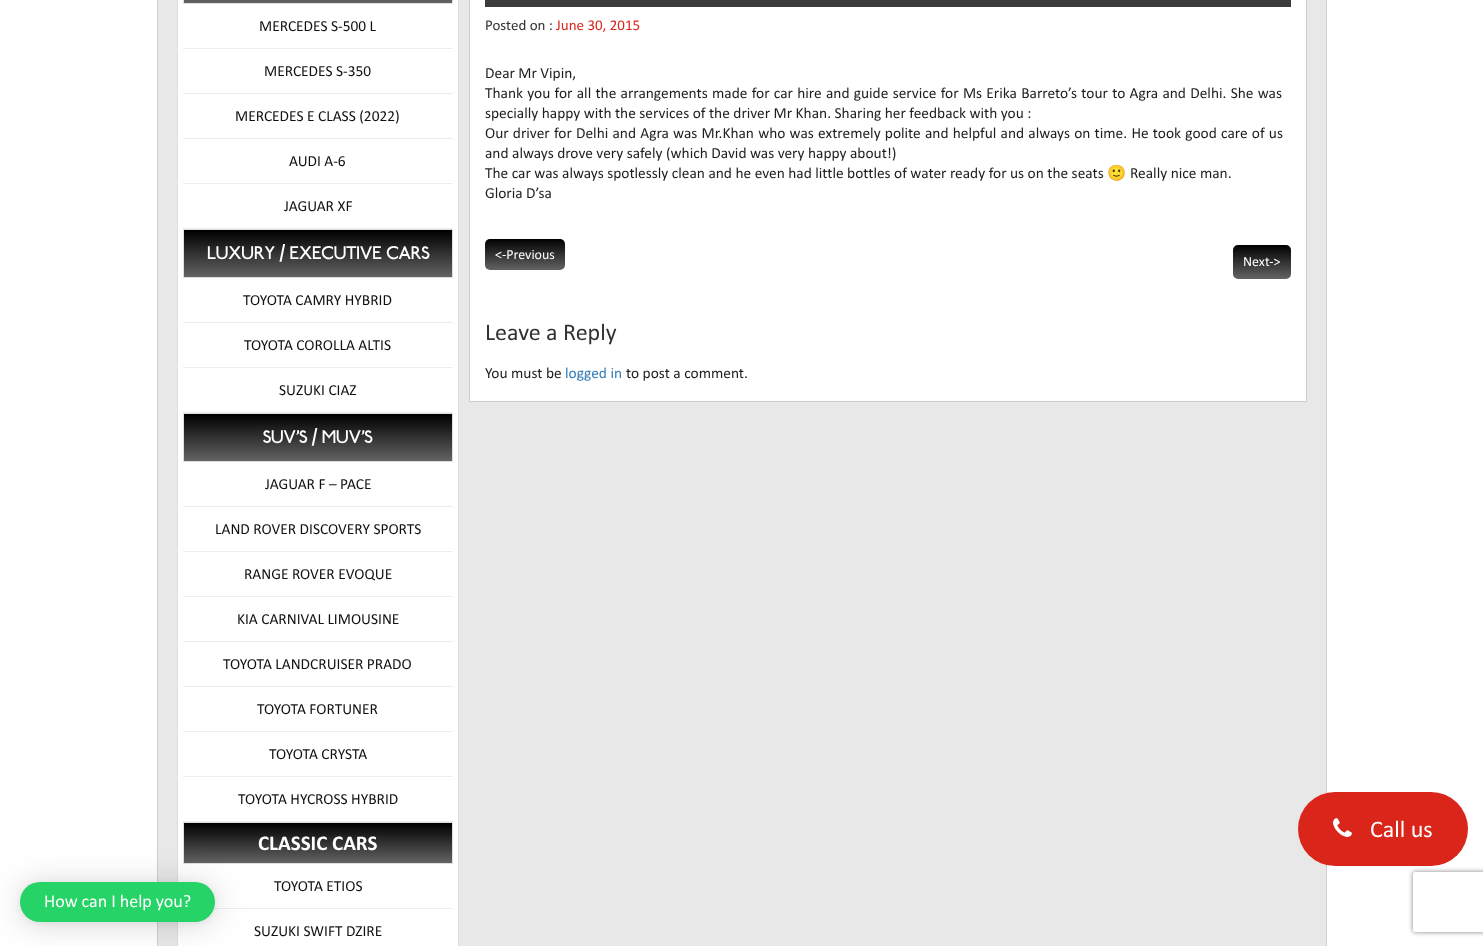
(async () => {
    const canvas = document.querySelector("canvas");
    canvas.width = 1483;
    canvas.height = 946;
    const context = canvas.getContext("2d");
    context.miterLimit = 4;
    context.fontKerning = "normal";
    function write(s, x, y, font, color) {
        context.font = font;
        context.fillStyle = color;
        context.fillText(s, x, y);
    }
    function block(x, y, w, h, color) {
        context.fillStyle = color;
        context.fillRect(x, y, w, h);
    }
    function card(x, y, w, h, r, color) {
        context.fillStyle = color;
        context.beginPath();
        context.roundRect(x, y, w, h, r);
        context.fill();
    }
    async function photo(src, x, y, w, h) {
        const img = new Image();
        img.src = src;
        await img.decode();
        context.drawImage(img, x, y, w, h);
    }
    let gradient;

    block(0, 0, 1483, 946, "rgb(255, 255, 255)");
    context.fillStyle = "rgb(232, 232, 232)";
    context.beginPath();
    context.rect(157.5, -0.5, 1169, 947);
    context.fill();
    context.strokeStyle = "rgb(208, 208, 208)";
    context.stroke();
    context.fillStyle = "rgb(255, 255, 255)";
    context.beginPath();
    context.rect(177.5, -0.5, 281, 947);
    context.fill();
    context.strokeStyle = "rgb(223, 223, 223)";
    context.stroke();
    gradient = context.createLinearGradient(318, -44, 318, 3);
    gradient.addColorStop(0, "rgb(0, 0, 0)");
    gradient.addColorStop(1, "rgb(100, 99, 99)");
    context.fillStyle = gradient;
    context.fillRect(183, 0, 270, 3);
    context.strokeRect(183.5, -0.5, 269, 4);
    block(183, 48, 270, 1, "rgb(237, 237, 237)");
    write("MERCEDES S-500 L", 259, 31, "15.4px Calibri", "rgb(17, 17, 17)");
    block(183, 93, 270, 1, "rgb(237, 237, 237)");
    write("MERCEDES S-350", 264, 76, "15.4px Calibri", "rgb(17, 17, 17)");
    block(183, 138, 270, 1, "rgb(237, 237, 237)");
    write("MERCEDES E CLASS (2022)", 235, 121, "15.4px Calibri", "rgb(17, 17, 17)");
    block(183, 183, 270, 1, "rgb(237, 237, 237)");
    write("AUDI A-6", 289, 166, "15.4px Calibri", "rgb(17, 17, 17)");
    block(183, 228, 270, 1, "rgb(237, 237, 237)");
    write("JAGUAR XF", 284, 211, "15.4px Calibri", "rgb(17, 17, 17)");
    gradient = context.createLinearGradient(318, 230, 318, 277);
    gradient.addColorStop(0, "rgb(0, 0, 0)");
    gradient.addColorStop(1, "rgb(100, 99, 99)");
    context.fillStyle = gradient;
    context.fillRect(184, 230, 268, 47);
    context.strokeRect(183.5, 229.5, 269, 48);
    write("LUXURY / EXECUTIVE CARS", 207, 259, "18.25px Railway", "rgb(255, 255, 255)");
    block(183, 322, 270, 1, "rgb(237, 237, 237)");
    write("TOYOTA CAMRY HYBRID", 243, 305, "15.4px Calibri", "rgb(17, 17, 17)");
    block(183, 367, 270, 1, "rgb(237, 237, 237)");
    write("TOYOTA COROLLA ALTIS", 244, 350, "15.4px Calibri", "rgb(17, 17, 17)");
    block(183, 412, 270, 1, "rgb(237, 237, 237)");
    write("SUZUKI CIAZ", 279, 395, "15.4px Calibri", "rgb(17, 17, 17)");
    gradient = context.createLinearGradient(318, 414, 318, 461);
    gradient.addColorStop(0, "rgb(0, 0, 0)");
    gradient.addColorStop(1, "rgb(100, 99, 99)");
    context.fillStyle = gradient;
    context.fillRect(184, 414, 268, 47);
    context.strokeRect(183.5, 413.5, 269, 48);
    write("SUV’S / MUV’S", 263, 443, "18.25px Railway", "rgb(255, 255, 255)");
    block(183, 506, 270, 1, "rgb(237, 237, 237)");
    write("JAGUAR F – PACE", 265, 489, "15.4px Calibri", "rgb(17, 17, 17)");
    block(183, 551, 270, 1, "rgb(237, 237, 237)");
    write("LAND ROVER DISCOVERY SPORTS", 215, 534, "15.4px Calibri", "rgb(17, 17, 17)");
    block(183, 596, 270, 1, "rgb(237, 237, 237)");
    write("RANGE ROVER EVOQUE", 244, 579, "15.4px Calibri", "rgb(17, 17, 17)");
    block(183, 641, 270, 1, "rgb(237, 237, 237)");
    write("KIA CARNIVAL LIMOUSINE", 237, 624, "15.4px Calibri", "rgb(17, 17, 17)");
    block(183, 686, 270, 1, "rgb(237, 237, 237)");
    write("TOYOTA LANDCRUISER PRADO", 223, 669, "15.4px Calibri", "rgb(17, 17, 17)");
    block(183, 731, 270, 1, "rgb(237, 237, 237)");
    write("TOYOTA FORTUNER", 257, 714, "15.4px Calibri", "rgb(17, 17, 17)");
    block(183, 776, 270, 1, "rgb(237, 237, 237)");
    write("TOYOTA CRYSTA", 269, 759, "15.4px Calibri", "rgb(17, 17, 17)");
    block(183, 821, 270, 1, "rgb(237, 237, 237)");
    write("TOYOTA HYCROSS HYBRID", 238, 804, "15.4px Calibri", "rgb(17, 17, 17)");
    gradient = context.createLinearGradient(318, 823, 318, 863);
    gradient.addColorStop(0, "rgb(0, 0, 0)");
    gradient.addColorStop(1, "rgb(100, 99, 99)");
    context.fillStyle = gradient;
    context.fillRect(184, 823, 268, 40);
    context.strokeRect(183.5, 822.5, 269, 41);
    write("CLASSIC CARS", 258, 850, "bold 21px Calibri", "rgb(255, 255, 255)");
    block(213, 908, 240, 1, "rgb(237, 237, 237)");
    write("TOYOTA ETIOS", 274, 891, "15.4px Calibri", "rgb(17, 17, 17)");
    write("SUZUKI SWIFT DZIRE", 254, 936, "15.4px Calibri", "rgb(17, 17, 17)");
    context.fillStyle = "rgb(255, 255, 255)";
    context.beginPath();
    context.rect(469.5, -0.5, 837, 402);
    context.fill();
    context.strokeStyle = "rgb(204, 204, 204)";
    context.stroke();
    block(485, 0, 806, 7, "rgb(59, 59, 59)");
    write("Posted on :", 485, 30, "15px Calibri", "rgb(51, 51, 51)");
    write("June 30, 2015", 556, 30, "15px Calibri", "rgb(218, 37, 28)");
    write("Dear Mr Vipin,", 485, 78, "15.4px Calibri", "rgb(31, 31, 31)");
    context.wordSpacing = "0.8px";
    write("Thank you for all the arrangements made for car hire and guide service for Ms Erika Barreto’s tour to Agra and Delhi. She was", 485, 98, "15.4px Calibri", "rgb(31, 31, 31)");
    context.wordSpacing = "0px";
    write("specially happy with the services of the driver Mr Khan. Sharing her feedback with you :", 485, 118, "15.4px Calibri", "rgb(31, 31, 31)");
    context.wordSpacing = "0.75px";
    write("Our driver for Delhi and Agra was Mr.Khan who was extremely polite and helpful and always on time. He took good care of us", 485, 138, "15.4px Calibri", "rgb(31, 31, 31)");
    context.wordSpacing = "0px";
    write("and always drove very safely (which David was very happy about!)", 485, 158, "15.4px Calibri", "rgb(31, 31, 31)");
    write("The car was always spotlessly clean and he even had little bottles of water ready for us on the seats", 485, 178, "15.4px Calibri", "rgb(31, 31, 31)");
    write("🙂", 1107, 178, "15.4px Noto Color Emoji", "rgb(31, 31, 31)");
    write("Really nice man.", 1130, 178, "15.4px Calibri", "rgb(31, 31, 31)");
    write("Gloria D’sa", 485, 198, "15.4px Calibri", "rgb(31, 31, 31)");
    gradient = context.createLinearGradient(525, 239, 525, 270);
    gradient.addColorStop(0, "rgb(0, 0, 0)");
    gradient.addColorStop(1, "rgb(100, 99, 99)");
    context.fillStyle = gradient;
    context.beginPath();
    context.roundRect(485, 239, 80, 31, 5);
    context.fill();
    write("<-Previous", 495, 259, "14px Calibri", "rgb(255, 255, 255)");
    gradient = context.createLinearGradient(1262, 245, 1262, 279);
    gradient.addColorStop(0, "rgb(0, 0, 0)");
    gradient.addColorStop(1, "rgb(100, 99, 99)");
    context.fillStyle = gradient;
    context.beginPath();
    context.roundRect(1233, 245, 58, 34, 5);
    context.fill();
    write("Next->", 1243, 266, "14px Calibri", "rgb(255, 255, 255)");
    write("Leave a Reply", 485, 340, "24px Calibri", "rgb(51, 51, 51)");
    write("You must be", 485, 378, "15.4px Calibri", "rgb(31, 31, 31)");
    write("logged in", 565, 378, "15.4px Calibri", "rgb(51, 122, 183)");
    write("to post a comment.", 626, 378, "15.4px Calibri", "rgb(31, 31, 31)");
    card(1298, 792, 170, 74, 37, "rgb(218, 37, 26)");
    await photo("media/1.png", 1333, 818, 19, 19);
    write("Call us", 1370, 837, "24px Calibri", "rgb(255, 255, 255)");
    context.fillStyle = "rgba(0, 0, 0, 0.16)";
    context.filter = "blur(16px)";
    context.beginPath();
    context.roundRect(20, 884, 195, 40, 20);
    context.fill();
    context.filter = "none";
    context.fillStyle = "rgba(0, 0, 0, 0.06)";
    context.filter = "blur(3px)";
    context.beginPath();
    context.roundRect(20, 883, 195, 40, 20);
    context.fill();
    context.filter = "none";
    card(20, 882, 195, 40, 20, "rgb(37, 211, 102)");
    write("How can I help you?", 44, 907, "18px Calibri", "rgb(255, 255, 255)");
    context.save();
    context.beginPath();
    context.moveTo(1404, 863);
    context.lineTo(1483, 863);
    context.lineTo(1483, 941);
    context.lineTo(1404, 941);
    context.closePath();
    context.moveTo(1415, 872);
    context.lineTo(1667, 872);
    context.bezierCurveTo(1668, 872, 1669, 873, 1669, 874);
    context.lineTo(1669, 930);
    context.bezierCurveTo(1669, 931, 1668, 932, 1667, 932);
    context.lineTo(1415, 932);
    context.bezierCurveTo(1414, 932, 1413, 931, 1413, 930);
    context.lineTo(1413, 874);
    context.bezierCurveTo(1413, 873, 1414, 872, 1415, 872);
    context.closePath();
    context.clip("evenodd");
    context.fillStyle = "rgb(128, 128, 128)";
    context.filter = "blur(2.5px)";
    context.beginPath();
    context.roundRect(1413, 872, 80, 60, 2);
    context.fill();
    context.filter = "none";
    context.restore();
})();
